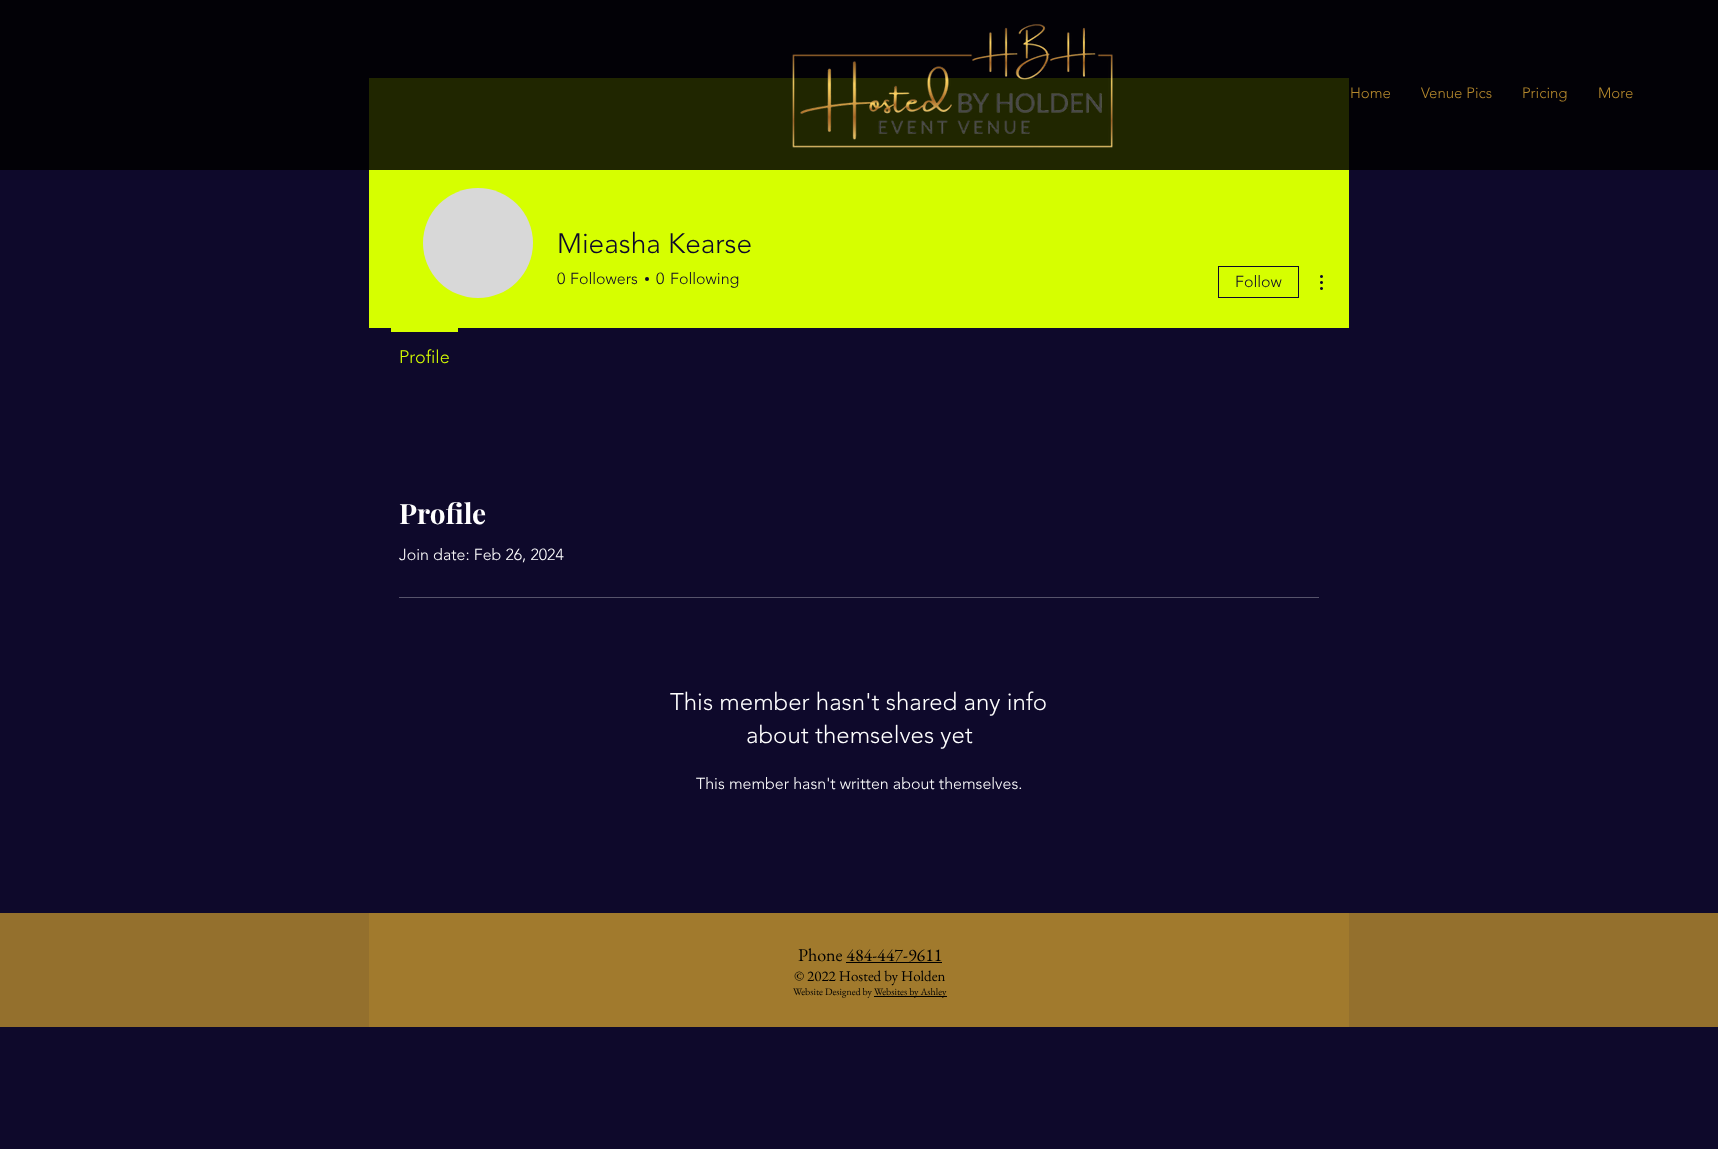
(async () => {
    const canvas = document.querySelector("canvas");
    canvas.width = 1718;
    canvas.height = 1149;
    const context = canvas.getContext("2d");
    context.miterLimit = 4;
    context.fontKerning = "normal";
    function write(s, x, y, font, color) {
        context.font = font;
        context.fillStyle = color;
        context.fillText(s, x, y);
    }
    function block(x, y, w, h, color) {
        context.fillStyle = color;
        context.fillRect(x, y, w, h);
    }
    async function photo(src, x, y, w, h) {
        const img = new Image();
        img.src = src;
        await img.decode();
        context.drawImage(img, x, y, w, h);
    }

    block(0, 0, 1718, 1149, "rgb(14, 9, 43)");
    block(0, 0, 1718, 170, "rgb(2, 1, 6)");
    block(369, 78, 980, 92, "rgb(32, 38, 0)");
    await photo("media/1.png", 792, 24, 321, 124);
    write("Home", 1350, 98, "300 15px 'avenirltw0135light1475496'", "rgb(180, 136, 45)");
    write("Venue Pics", 1421, 98, "300 15px 'avenirltw0135light1475496'", "rgb(180, 136, 45)");
    write("Pricing", 1522, 98, "300 15px 'avenirltw0135light1475496'", "rgb(180, 136, 45)");
    write("More", 1598, 98, "300 15px 'avenirltw0135light1475496'", "rgb(180, 136, 45)");
    block(369, 170, 980, 158, "rgb(214, 255, 0)");
    context.fillStyle = "rgb(216, 216, 216)";
    context.beginPath();
    context.arc(478, 243, 55, 0, Math.PI * 2);
    context.fill();
    write("Mieasha Kearse", 557, 253, "300 28px 'avenirltw0135light1475496'", "rgb(14, 9, 43)");
    write("0", 557, 284, "300 16px 'avenirltw0135light1475496'", "rgb(14, 9, 43)");
    write("Followers", 570, 284, "300 16px 'avenirltw0135light1475496'", "rgb(14, 9, 43)");
    context.beginPath();
    context.arc(647, 279, 2, 0, Math.PI * 2);
    context.fill();
    write("0", 656, 284, "300 16px 'avenirltw0135light1475496'", "rgb(14, 9, 43)");
    write("Following", 670, 284, "300 16px 'avenirltw0135light1475496'", "rgb(14, 9, 43)");
    context.strokeStyle = "rgb(14, 9, 43)";
    context.strokeRect(1218.5, 266.5, 80, 31);
    write("Follow", 1235, 287, "300 16px 'avenirltw0135light1475496'", "rgb(14, 9, 43)");
    await photo("media/2.png", 1320, 275, 3, 15);
    block(391, 328, 67, 4, "rgb(214, 255, 0)");
    write("Profile", 399, 363, "300 18px 'avenirltw0135light1475496'", "rgb(214, 255, 0)");
    write("Profile", 399, 524, "bold 28px Playfair Display", "rgb(255, 255, 255)");
    write("Join date: Feb 26, 2024", 399, 560, "300 16px 'avenirltw0135light1475496'", "rgb(255, 255, 255)");
    block(399, 597, 920, 1, "rgb(86, 83, 107)");
    write("This member hasn't shared any info", 670, 710, "300 24px 'avenirltw0135light1475496'", "rgb(255, 255, 255)");
    write("about themselves yet", 746, 743, "300 24px 'avenirltw0135light1475496'", "rgb(255, 255, 255)");
    write("This member hasn't written about themselves.", 696, 789, "300 16px 'avenirltw0135light1475496'", "rgb(255, 255, 255)");
    block(0, 913, 1718, 114, "rgb(148, 112, 45)");
    block(369, 913, 980, 114, "rgb(161, 122, 45)");
    write("Phone 484-447-9611", 798, 961, "18px EB Garamond", "rgb(0, 0, 0)");
    block(846, 962, 96, 1, "rgb(0, 0, 0)");
    write("© 2022 Hosted by Holden", 794, 981, "15px EB Garamond", "rgb(0, 0, 0)");
    write("Website Designed by", 793, 995, "10px EB Garamond", "rgb(0, 0, 0)");
    block(874, 996, 73, 1, "rgb(0, 0, 0)");
    write("Websites by Ashley", 874, 995, "10px EB Garamond", "rgb(0, 0, 0)");
})();
